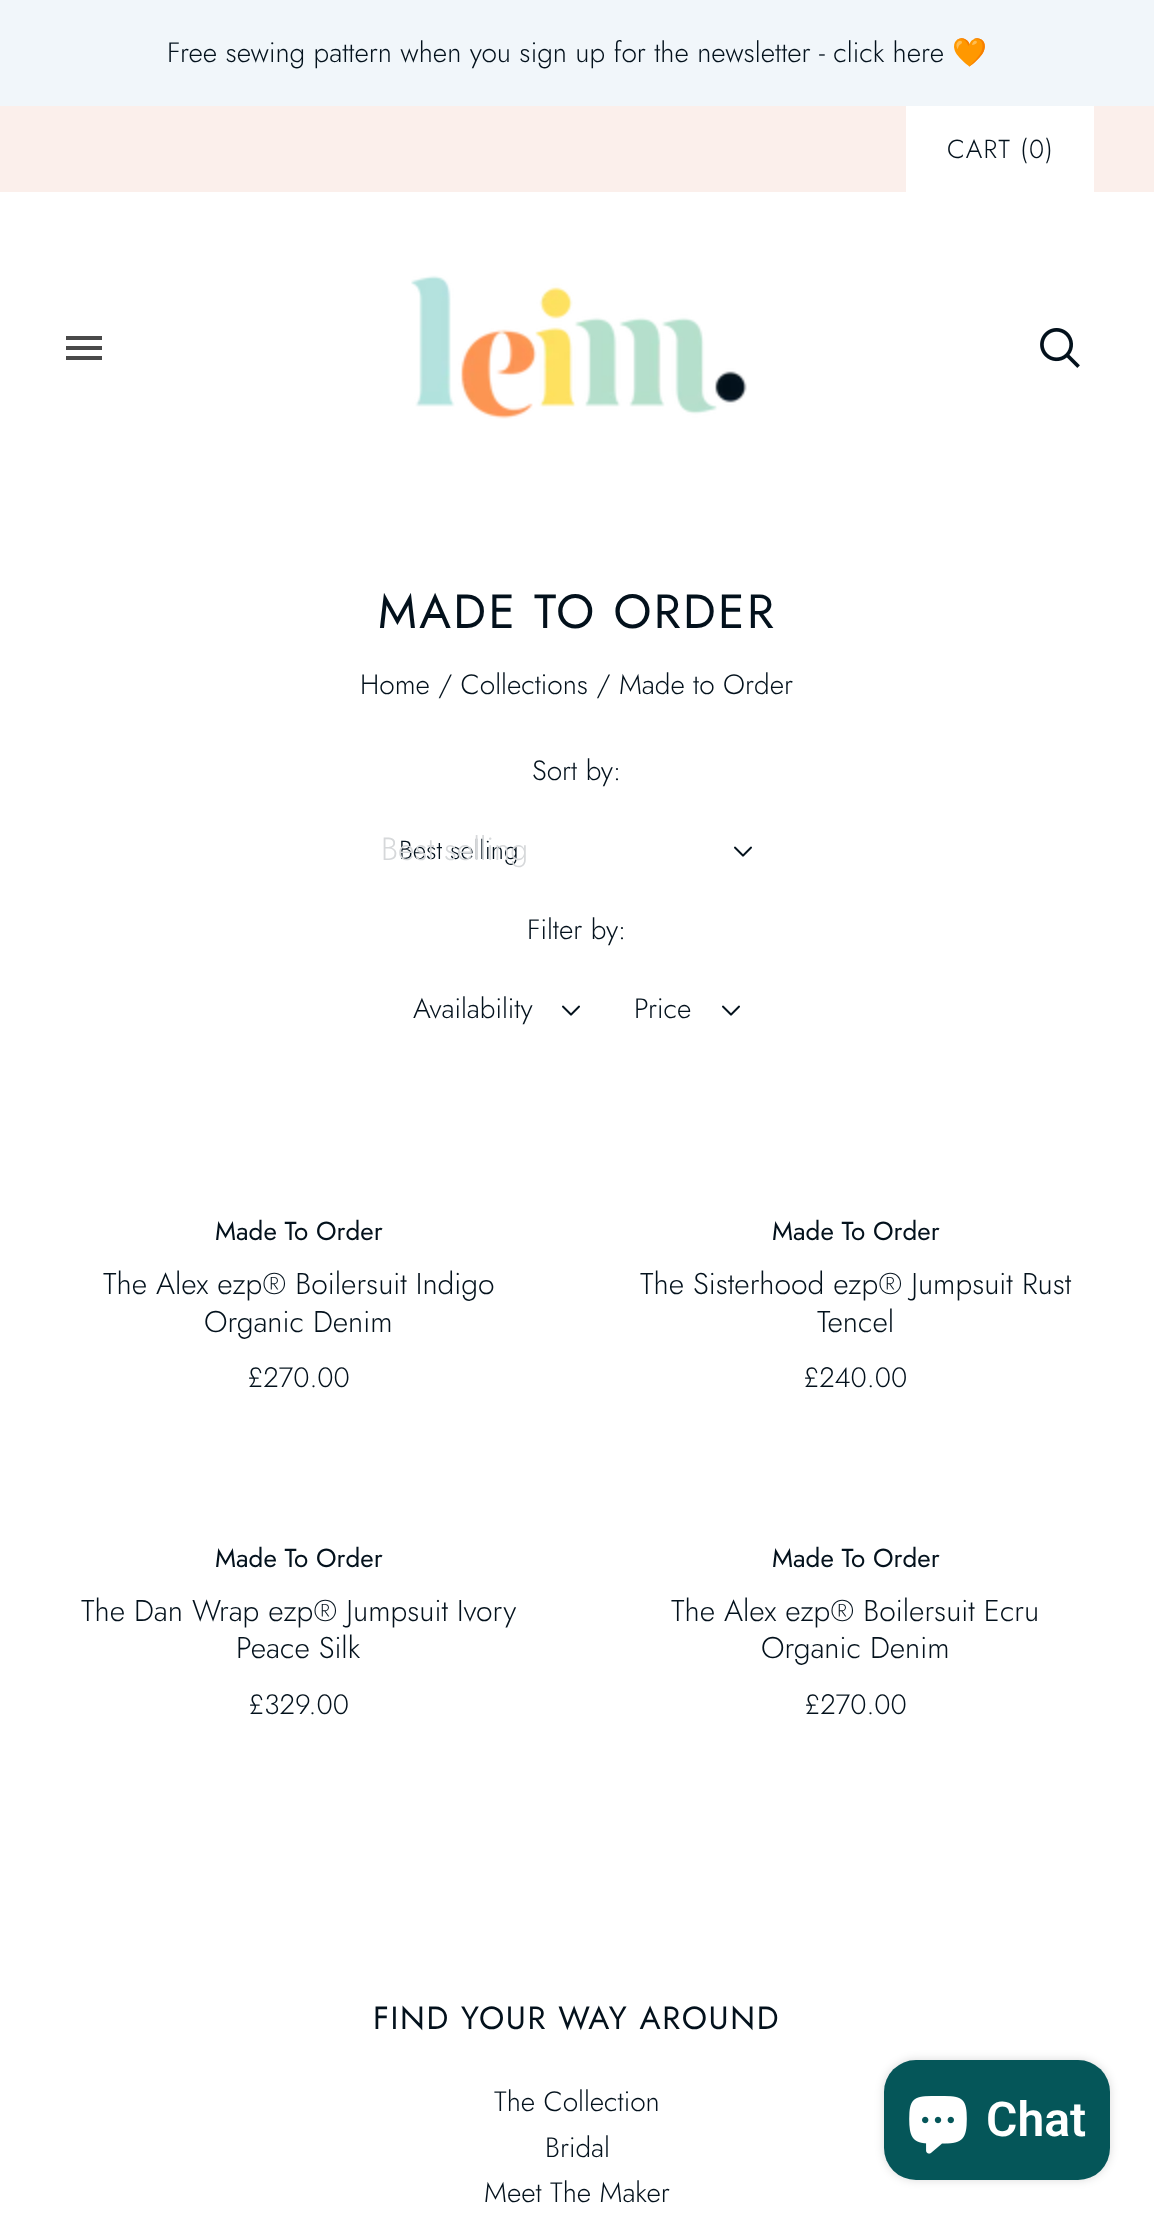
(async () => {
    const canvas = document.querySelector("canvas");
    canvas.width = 1154;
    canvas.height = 2221;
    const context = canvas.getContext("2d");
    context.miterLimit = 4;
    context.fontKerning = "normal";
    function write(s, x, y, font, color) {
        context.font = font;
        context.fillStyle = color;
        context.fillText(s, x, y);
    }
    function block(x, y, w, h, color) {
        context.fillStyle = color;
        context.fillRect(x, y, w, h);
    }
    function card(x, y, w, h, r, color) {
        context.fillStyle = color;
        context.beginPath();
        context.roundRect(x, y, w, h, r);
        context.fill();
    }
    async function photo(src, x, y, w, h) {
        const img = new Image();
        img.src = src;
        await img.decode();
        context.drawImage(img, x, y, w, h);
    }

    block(0, 0, 1154, 2221, "rgb(255, 255, 255)");
    block(0, 0, 1154, 106, "rgb(241, 246, 250)");
    write("Free sewing pattern when you sign up for the newsletter - click here", 167, 62, "300 28px Jost", "rgb(3, 17, 28)");
    write("🧡", 952, 62, "28px Noto Color Emoji", "rgb(3, 17, 28)");
    block(0, 106, 1154, 86, "rgb(251, 239, 235)");
    block(906, 106, 188, 86, "rgb(255, 255, 255)");
    context.letterSpacing = "1.25px";
    write("CART (0)", 947, 158, "300 26px Jost", "rgb(3, 17, 28)");
    context.fillStyle = "rgb(73, 73, 73)";
    context.beginPath();
    context.moveTo(66, 336);
    context.lineTo(102, 336);
    context.lineTo(102, 340);
    context.lineTo(66, 340);
    context.closePath();
    context.moveTo(66, 346);
    context.lineTo(102, 346);
    context.lineTo(102, 350);
    context.lineTo(66, 350);
    context.closePath();
    context.moveTo(66, 356);
    context.lineTo(102, 356);
    context.lineTo(102, 360);
    context.lineTo(66, 360);
    context.closePath();
    context.fill("evenodd");
    await photo("media/1.png", 411, 275, 336, 144);
    await photo("media/2.png", 1040, 328, 40, 40);
    context.letterSpacing = "2.4px";
    write("MADE TO ORDER", 378, 628, "48px Jost", "rgb(3, 17, 28)");
    context.letterSpacing = "0px";
    write("Home / Collections / Made to Order", 360, 694, "300 28px Jost", "rgb(3, 17, 28)");
    write("Sort by:", 532, 780, "300 28px Jost", "rgb(3, 17, 28)");
    write("Best selling", 399, 859, "300 26px Jost", "rgb(3, 17, 28)");
    write("Best selling", 381, 860, "300 32px Jost", "rgb(214, 216, 218)");
    await photo("media/3.png", 734, 846, 18, 11);
    write("Filter by:", 527, 939, "300 28px Jost", "rgb(3, 17, 28)");
    write("Availability", 413, 1018, "300 28px Jost", "rgb(3, 17, 28)");
    await photo("media/3.png", 562, 1005, 18, 11);
    write("Price", 634, 1018, "300 28px Jost", "rgb(3, 17, 28)");
    await photo("media/3.png", 722, 1005, 18, 11);
    write("Made To Order", 215, 1240, "26px Jost", "rgb(3, 17, 28)");
    write("The Alex ezp® Boilersuit Indigo", 103, 1294, "300 30px Jost", "rgb(3, 17, 28)");
    write("Organic Denim", 204, 1332, "300 30px Jost", "rgb(3, 17, 28)");
    write("£270.00", 247, 1387, "300 28px Jost", "rgb(3, 17, 28)");
    write("Made To Order", 772, 1240, "26px Jost", "rgb(3, 17, 28)");
    write("The Sisterhood ezp® Jumpsuit Rust", 640, 1294, "300 30px Jost", "rgb(3, 17, 28)");
    write("Tencel", 817, 1332, "300 30px Jost", "rgb(3, 17, 28)");
    write("£240.00", 803, 1387, "300 28px Jost", "rgb(3, 17, 28)");
    write("Made To Order", 215, 1567, "26px Jost", "rgb(3, 17, 28)");
    write("The Dan Wrap ezp® Jumpsuit Ivory", 81, 1621, "300 30px Jost", "rgb(3, 17, 28)");
    write("Peace Silk", 236, 1658, "300 30px Jost", "rgb(3, 17, 28)");
    write("£329.00", 248, 1714, "300 28px Jost", "rgb(3, 17, 28)");
    write("Made To Order", 772, 1567, "26px Jost", "rgb(3, 17, 28)");
    write("The Alex ezp® Boilersuit Ecru", 671, 1621, "300 30px Jost", "rgb(3, 17, 28)");
    write("Organic Denim", 761, 1658, "300 30px Jost", "rgb(3, 17, 28)");
    write("£270.00", 804, 1714, "300 28px Jost", "rgb(3, 17, 28)");
    context.letterSpacing = "1.6px";
    write("FIND YOUR WAY AROUND", 373, 2029, "32px Jost", "rgb(3, 17, 28)");
    context.letterSpacing = "0px";
    write("The Collection", 494, 2111, "300 28px Jost", "rgb(3, 17, 28)");
    write("Bridal", 545, 2157, "300 28px Jost", "rgb(3, 17, 28)");
    write("Meet The Maker", 484, 2202, "300 28px Jost", "rgb(3, 17, 28)");
    context.fillStyle = "rgba(0, 0, 0, 0.15)";
    context.filter = "blur(5px)";
    context.beginPath();
    context.roundRect(884, 2060, 226, 120, 32);
    context.fill();
    context.filter = "none";
    card(884, 2060, 226, 120, 32, "rgb(5, 86, 89)");
    await photo("media/4.png", 909, 2096, 58, 58);
    write("Chat", 986, 2136, "600 48px Roboto", "rgb(255, 255, 255)");
})();
